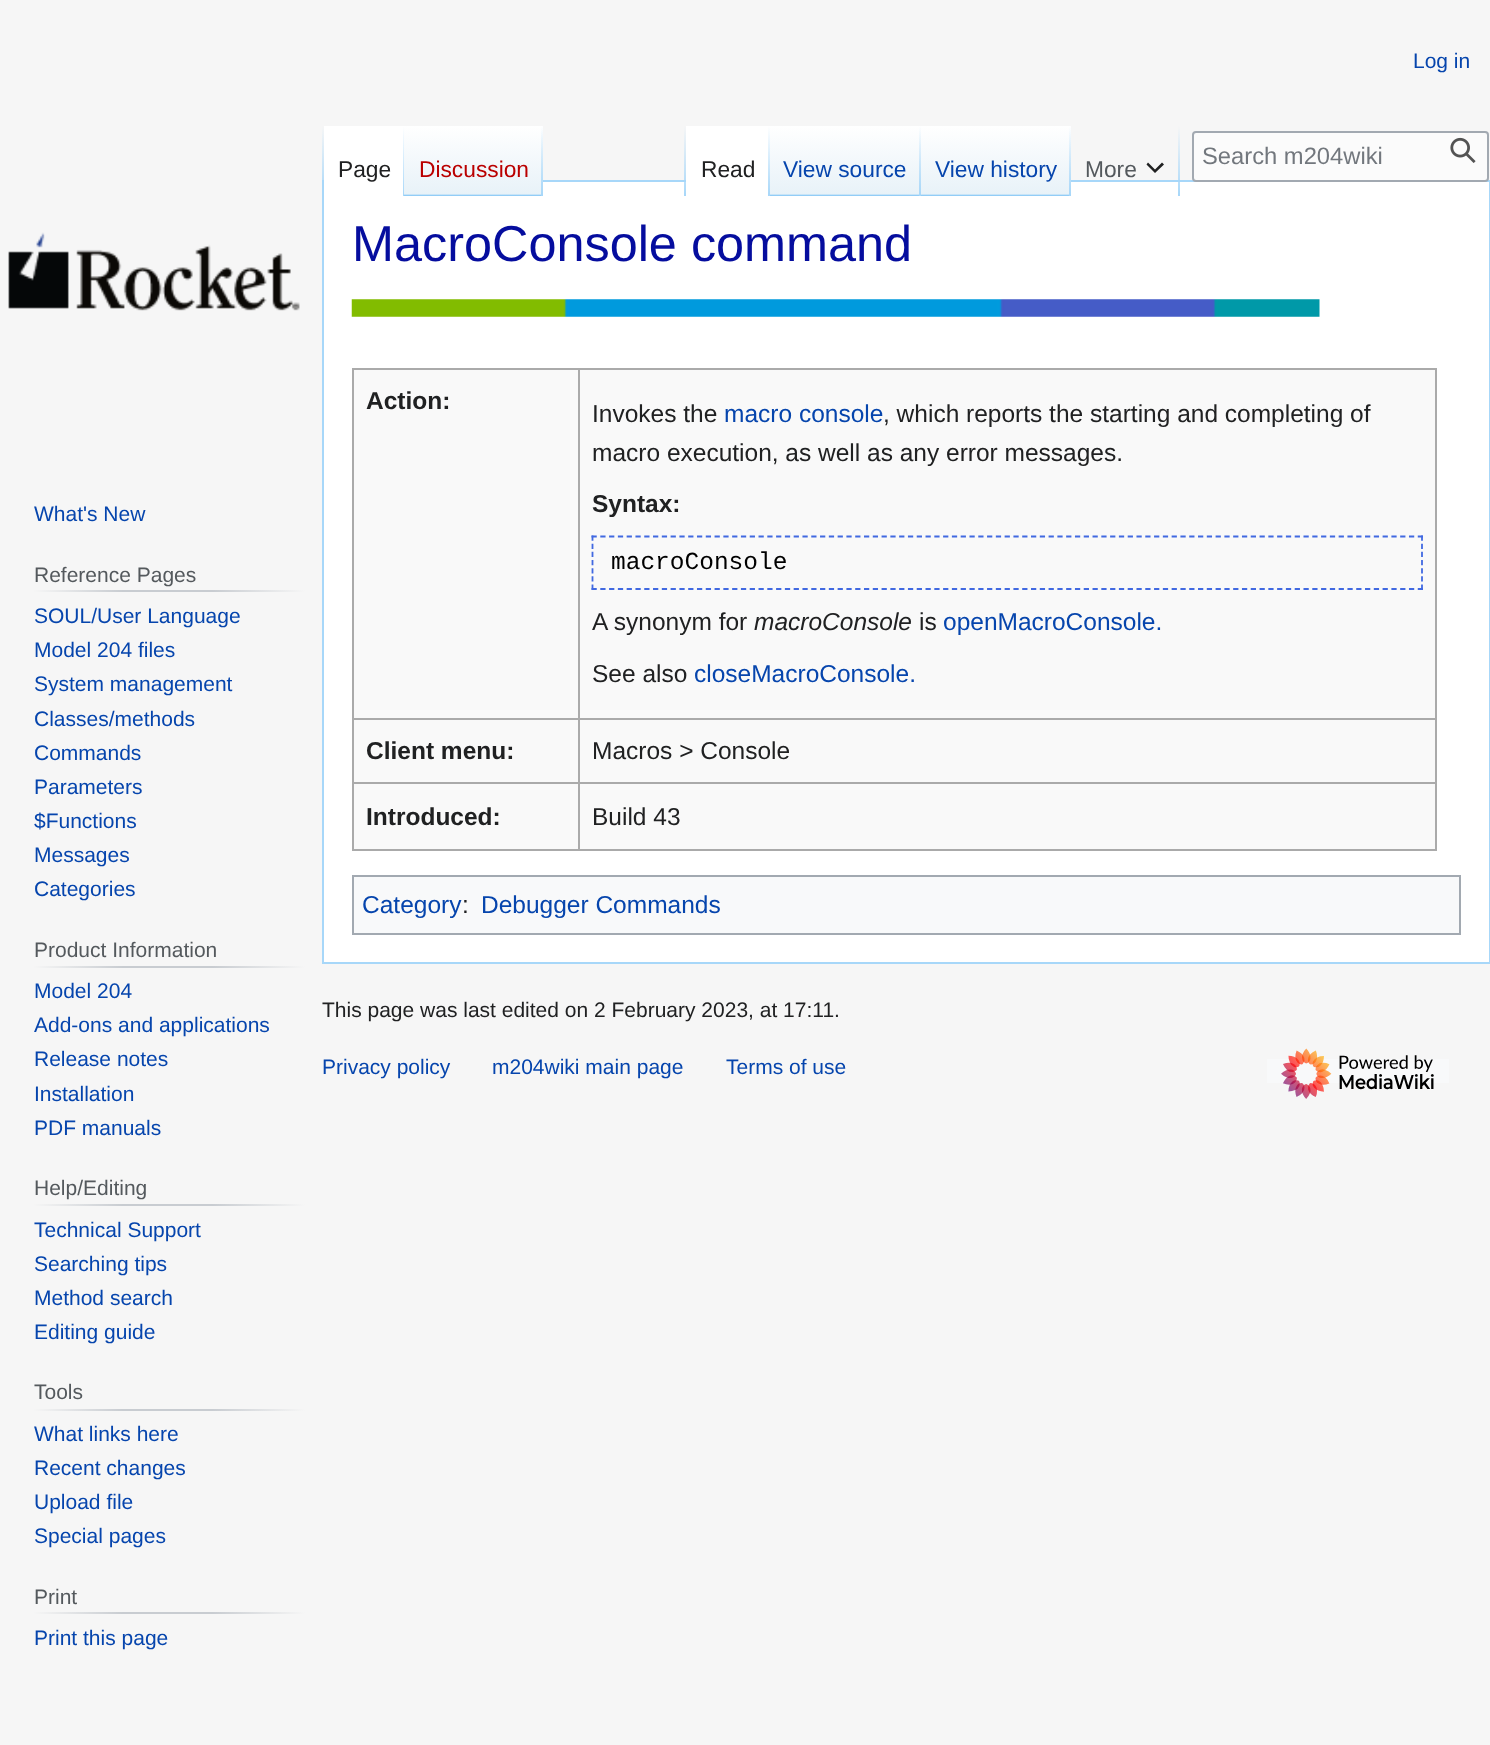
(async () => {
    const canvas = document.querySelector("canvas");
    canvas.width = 1490;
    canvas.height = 1745;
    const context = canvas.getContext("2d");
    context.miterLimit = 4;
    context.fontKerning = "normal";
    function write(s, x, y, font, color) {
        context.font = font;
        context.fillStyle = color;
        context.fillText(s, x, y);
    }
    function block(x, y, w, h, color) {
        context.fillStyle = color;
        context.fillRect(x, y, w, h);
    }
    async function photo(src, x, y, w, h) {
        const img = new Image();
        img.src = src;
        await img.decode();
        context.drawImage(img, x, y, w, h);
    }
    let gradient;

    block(0, 0, 1490, 1745, "rgb(246, 246, 246)");
    write("Log in", 1413, 68, "21px Liberation Sans", "rgb(6, 69, 173)");
    gradient = context.createLinearGradient(323, 126, 323, 196);
    gradient.addColorStop(0, "rgba(167, 215, 249, 0)");
    gradient.addColorStop(1, "rgb(167, 215, 249)");
    context.fillStyle = gradient;
    context.fillRect(322, 126, 2, 54);
    context.fillStyle = "rgb(255, 255, 255)";
    context.beginPath();
    context.rect(323, 181, 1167, 782);
    context.fill();
    context.strokeStyle = "rgb(167, 215, 249)";
    context.lineWidth = 2;
    context.stroke();
    block(324, 126, 79, 56, "rgb(255, 255, 255)");
    gradient = context.createLinearGradient(403, 126, 403, 196);
    gradient.addColorStop(0, "rgb(255, 255, 255)");
    gradient.addColorStop(1, "rgb(167, 215, 249)");
    context.fillStyle = gradient;
    context.fillRect(403, 126, 1, 70);
    write("Page", 338, 177, "22.75px Liberation Sans", "rgb(32, 33, 34)");
    gradient = context.createLinearGradient(473, 196, 473, 126);
    gradient.addColorStop(0, "rgb(119, 193, 246)");
    gradient.addColorStop(0.03, "rgb(232, 242, 248)");
    gradient.addColorStop(1, "rgb(255, 255, 255)");
    context.fillStyle = gradient;
    context.fillRect(404, 126, 139, 70);
    gradient = context.createLinearGradient(542, 126, 542, 196);
    gradient.addColorStop(0, "rgba(167, 215, 249, 0)");
    gradient.addColorStop(1, "rgb(167, 215, 249)");
    context.fillStyle = gradient;
    context.fillRect(541, 126, 2, 70);
    write("Discussion", 419, 177, "22.75px Liberation Sans", "rgb(186, 0, 0)");
    context.fillStyle = "rgba(255, 255, 255, 0.5)";
    context.beginPath();
    context.roundRect(1193, 132, 295, 49, 3);
    context.fill();
    context.strokeStyle = "rgb(162, 169, 177)";
    context.stroke();
    write("Search m204wiki", 1202, 164, "23.75px Liberation Sans", "rgb(114, 119, 125)");
    await photo("media/1.png", 1450, 137, 26, 26);
    gradient = context.createLinearGradient(685, 126, 685, 196);
    gradient.addColorStop(0, "rgba(167, 215, 249, 0)");
    gradient.addColorStop(1, "rgb(167, 215, 249)");
    context.fillStyle = gradient;
    context.fillRect(684, 126, 2, 70);
    block(686, 126, 82, 56, "rgb(255, 255, 255)");
    gradient = context.createLinearGradient(769, 126, 769, 196);
    gradient.addColorStop(0, "rgb(255, 255, 255)");
    gradient.addColorStop(1, "rgb(167, 215, 249)");
    context.fillStyle = gradient;
    context.fillRect(768, 126, 2, 70);
    write("Read", 701, 177, "22.75px Liberation Sans", "rgb(32, 33, 34)");
    gradient = context.createLinearGradient(845, 196, 845, 126);
    gradient.addColorStop(0, "rgb(119, 193, 246)");
    gradient.addColorStop(0.03, "rgb(232, 242, 248)");
    gradient.addColorStop(1, "rgb(255, 255, 255)");
    context.fillStyle = gradient;
    context.fillRect(770, 126, 151, 70);
    gradient = context.createLinearGradient(920, 126, 920, 196);
    gradient.addColorStop(0, "rgba(167, 215, 249, 0)");
    gradient.addColorStop(1, "rgb(167, 215, 249)");
    context.fillStyle = gradient;
    context.fillRect(919, 126, 2, 70);
    write("View source", 783, 177, "22.75px Liberation Sans", "rgb(6, 69, 173)");
    gradient = context.createLinearGradient(996, 196, 996, 126);
    gradient.addColorStop(0, "rgb(119, 193, 246)");
    gradient.addColorStop(0.03, "rgb(232, 242, 248)");
    gradient.addColorStop(1, "rgb(255, 255, 255)");
    context.fillStyle = gradient;
    context.fillRect(921, 126, 150, 70);
    gradient = context.createLinearGradient(1070, 126, 1070, 196);
    gradient.addColorStop(0, "rgba(167, 215, 249, 0)");
    gradient.addColorStop(1, "rgb(167, 215, 249)");
    context.fillStyle = gradient;
    context.fillRect(1069, 126, 2, 70);
    write("View history", 935, 177, "22.75px Liberation Sans", "rgb(6, 69, 173)");
    gradient = context.createLinearGradient(1179, 126, 1179, 196);
    gradient.addColorStop(0, "rgba(167, 215, 249, 0)");
    gradient.addColorStop(1, "rgb(167, 215, 249)");
    context.fillStyle = gradient;
    context.fillRect(1178, 126, 2, 70);
    write("More", 1085, 177, "22.75px Liberation Sans", "rgb(84, 89, 93)");
    context.fillStyle = "rgb(32, 33, 34)";
    context.beginPath();
    context.moveTo(1164, 164.5);
    context.lineTo(1162, 162.5);
    context.lineTo(1155, 169.5);
    context.lineTo(1148, 162.5);
    context.lineTo(1146.5, 164.5);
    context.lineTo(1155, 173);
    context.closePath();
    context.fill();
    await photo("media/2.png", 8, 232, 292, 79);
    write("What's New", 34, 521, "21px Liberation Sans", "rgb(6, 69, 173)");
    gradient = context.createLinearGradient(33, 591, 305, 591);
    gradient.addColorStop(0, "rgb(246, 246, 246)");
    gradient.addColorStop(0.33, "rgb(200, 204, 209)");
    gradient.addColorStop(0.66, "rgb(200, 204, 209)");
    gradient.addColorStop(1, "rgb(246, 246, 246)");
    context.fillStyle = gradient;
    context.fillRect(33, 590, 272, 2);
    write("Reference Pages", 34, 582, "21px Liberation Sans", "rgb(84, 89, 93)");
    write("SOUL/User Language", 34, 623, "21px Liberation Sans", "rgb(6, 69, 173)");
    write("Model 204 files", 34, 657, "21px Liberation Sans", "rgb(6, 69, 173)");
    write("System management", 34, 691, "21px Liberation Sans", "rgb(6, 69, 173)");
    write("Classes/methods", 34, 726, "21px Liberation Sans", "rgb(6, 69, 173)");
    write("Commands", 34, 760, "21px Liberation Sans", "rgb(6, 69, 173)");
    write("Parameters", 34, 794, "21px Liberation Sans", "rgb(6, 69, 173)");
    write("$Functions", 34, 828, "21px Liberation Sans", "rgb(6, 69, 173)");
    write("Messages", 34, 862, "21px Liberation Sans", "rgb(6, 69, 173)");
    write("Categories", 34, 896, "21px Liberation Sans", "rgb(6, 69, 173)");
    gradient = context.createLinearGradient(33, 967, 305, 967);
    gradient.addColorStop(0, "rgb(246, 246, 246)");
    gradient.addColorStop(0.33, "rgb(200, 204, 209)");
    gradient.addColorStop(0.66, "rgb(200, 204, 209)");
    gradient.addColorStop(1, "rgb(246, 246, 246)");
    context.fillStyle = gradient;
    context.fillRect(33, 966, 272, 2);
    write("Product Information", 34, 957, "21px Liberation Sans", "rgb(84, 89, 93)");
    write("Model 204", 34, 998, "21px Liberation Sans", "rgb(6, 69, 173)");
    write("Add-ons and applications", 34, 1032, "21px Liberation Sans", "rgb(6, 69, 173)");
    write("Release notes", 34, 1066, "21px Liberation Sans", "rgb(6, 69, 173)");
    write("Installation", 34, 1101, "21px Liberation Sans", "rgb(6, 69, 173)");
    write("PDF manuals", 34, 1135, "21px Liberation Sans", "rgb(6, 69, 173)");
    gradient = context.createLinearGradient(33, 1205, 305, 1205);
    gradient.addColorStop(0, "rgb(246, 246, 246)");
    gradient.addColorStop(0.33, "rgb(200, 204, 209)");
    gradient.addColorStop(0.66, "rgb(200, 204, 209)");
    gradient.addColorStop(1, "rgb(246, 246, 246)");
    context.fillStyle = gradient;
    context.fillRect(33, 1204, 272, 2);
    write("Help/Editing", 34, 1195, "21px Liberation Sans", "rgb(84, 89, 93)");
    write("Technical Support", 34, 1237, "21px Liberation Sans", "rgb(6, 69, 173)");
    write("Searching tips", 34, 1271, "21px Liberation Sans", "rgb(6, 69, 173)");
    write("Method search", 34, 1305, "21px Liberation Sans", "rgb(6, 69, 173)");
    write("Editing guide", 34, 1339, "21px Liberation Sans", "rgb(6, 69, 173)");
    gradient = context.createLinearGradient(33, 1410, 305, 1410);
    gradient.addColorStop(0, "rgb(246, 246, 246)");
    gradient.addColorStop(0.33, "rgb(200, 204, 209)");
    gradient.addColorStop(0.66, "rgb(200, 204, 209)");
    gradient.addColorStop(1, "rgb(246, 246, 246)");
    context.fillStyle = gradient;
    context.fillRect(33, 1409, 272, 2);
    write("Tools", 34, 1399, "21px Liberation Sans", "rgb(84, 89, 93)");
    write("What links here", 34, 1441, "21px Liberation Sans", "rgb(6, 69, 173)");
    write("Recent changes", 34, 1475, "21px Liberation Sans", "rgb(6, 69, 173)");
    write("Upload file", 34, 1509, "21px Liberation Sans", "rgb(6, 69, 173)");
    write("Special pages", 34, 1543, "21px Liberation Sans", "rgb(6, 69, 173)");
    gradient = context.createLinearGradient(33, 1613, 305, 1613);
    gradient.addColorStop(0, "rgb(246, 246, 246)");
    gradient.addColorStop(0.33, "rgb(200, 204, 209)");
    gradient.addColorStop(0.66, "rgb(200, 204, 209)");
    gradient.addColorStop(1, "rgb(246, 246, 246)");
    context.fillStyle = gradient;
    context.fillRect(33, 1612, 272, 2);
    write("Print", 34, 1604, "21px Liberation Sans", "rgb(84, 89, 93)");
    write("Print this page", 34, 1645, "21px Liberation Sans", "rgb(6, 69, 173)");
    await photo("media/3.png", 351, 299, 969, 18);
    write("MacroConsole command", 352, 261, "50.4px Liberation Sans", "rgb(5, 13, 158)");
    block(354, 370, 1081, 479, "rgb(249, 249, 249)");
    block(352, 368, 1085, 2, "rgb(170, 170, 170)");
    block(1435, 368, 2, 483, "rgb(170, 170, 170)");
    block(352, 849, 1085, 2, "rgb(170, 170, 170)");
    block(352, 368, 2, 483, "rgb(170, 170, 170)");
    write("Action:", 366, 409, "bold 24.5px Liberation Sans", "rgb(32, 33, 34)");
    block(578, 718, 859, 2, "rgb(170, 170, 170)");
    block(578, 782, 859, 2, "rgb(170, 170, 170)");
    block(578, 782, 2, 69, "rgb(170, 170, 170)");
    block(352, 782, 227, 2, "rgb(170, 170, 170)");
    block(578, 718, 2, 66, "rgb(170, 170, 170)");
    block(352, 718, 227, 2, "rgb(170, 170, 170)");
    block(578, 368, 2, 351, "rgb(170, 170, 170)");
    write("Invokes the", 592, 422, "24.5px Liberation Sans", "rgb(32, 33, 34)");
    write("macro console", 724, 422, "24.5px Liberation Sans", "rgb(6, 69, 173)");
    write(", which reports the starting and completing of", 883, 422, "24.5px Liberation Sans", "rgb(32, 33, 34)");
    write("macro execution, as well as any error messages.", 592, 461, "24.5px Liberation Sans", "rgb(32, 33, 34)");
    write("Syntax:", 592, 512, "bold 24.5px Liberation Sans", "rgb(32, 33, 34)");
    context.beginPath();
    context.moveTo(591.5, 536.5);
    context.lineTo(1423, 536.5);
    context.strokeStyle = "rgb(65, 105, 225)";
    context.lineWidth = 1.8;
    context.setLineDash([5.25, 3.54]);
    context.stroke();
    context.beginPath();
    context.moveTo(1422, 535.5);
    context.lineTo(1422, 590);
    context.setLineDash([5.25, 2.92]);
    context.stroke();
    context.beginPath();
    context.moveTo(591.5, 589);
    context.lineTo(1423, 589);
    context.setLineDash([5.25, 3.54]);
    context.stroke();
    context.beginPath();
    context.moveTo(592.5, 535.5);
    context.lineTo(592.5, 590);
    context.setLineDash([5.25, 2.92]);
    context.stroke();
    write("macroConsole", 611, 569, "24.5px Liberation Mono", "rgb(0, 0, 0)");
    write("A synonym for", 592, 630, "24.5px Liberation Sans", "rgb(32, 33, 34)");
    write("macroConsole", 754, 630, "italic 24.5px Liberation Sans", "rgb(32, 33, 34)");
    write("is", 919, 630, "24.5px Liberation Sans", "rgb(32, 33, 34)");
    write("openMacroConsole.", 943, 630, "24.5px Liberation Sans", "rgb(6, 69, 173)");
    write("See also", 592, 682, "24.5px Liberation Sans", "rgb(32, 33, 34)");
    write("closeMacroConsole.", 694, 682, "24.5px Liberation Sans", "rgb(6, 69, 173)");
    write("Client menu:", 366, 759, "bold 24.5px Liberation Sans", "rgb(32, 33, 34)");
    write("Macros > Console", 592, 759, "24.5px Liberation Sans", "rgb(32, 33, 34)");
    write("Introduced:", 366, 825, "bold 24.5px Liberation Sans", "rgb(32, 33, 34)");
    write("Build 43", 592, 825, "24.5px Liberation Sans", "rgb(32, 33, 34)");
    context.fillStyle = "rgb(248, 249, 250)";
    context.beginPath();
    context.rect(353, 876, 1107, 58);
    context.fill();
    context.strokeStyle = "rgb(162, 169, 177)";
    context.lineWidth = 2;
    context.setLineDash([]);
    context.stroke();
    write("Category", 362, 913, "24.5px Liberation Sans", "rgb(6, 69, 173)");
    write(":", 462, 913, "24.5px Liberation Sans", "rgb(32, 33, 34)");
    write("Debugger Commands", 481, 913, "24.5px Liberation Sans", "rgb(6, 69, 173)");
    write("This page was last edited on 2 February 2023, at 17:11.", 322, 1017, "21px Liberation Sans", "rgb(32, 33, 34)");
    write("Privacy policy", 322, 1074, "21px Liberation Sans", "rgb(6, 69, 173)");
    write("m204wiki main page", 492, 1074, "21px Liberation Sans", "rgb(6, 69, 173)");
    write("Terms of use", 726, 1074, "21px Liberation Sans", "rgb(6, 69, 173)");
    block(1267, 1059, 182, 24, "rgb(248, 249, 250)");
    await photo("media/4.png", 1281, 1048, 153, 51);
})();
